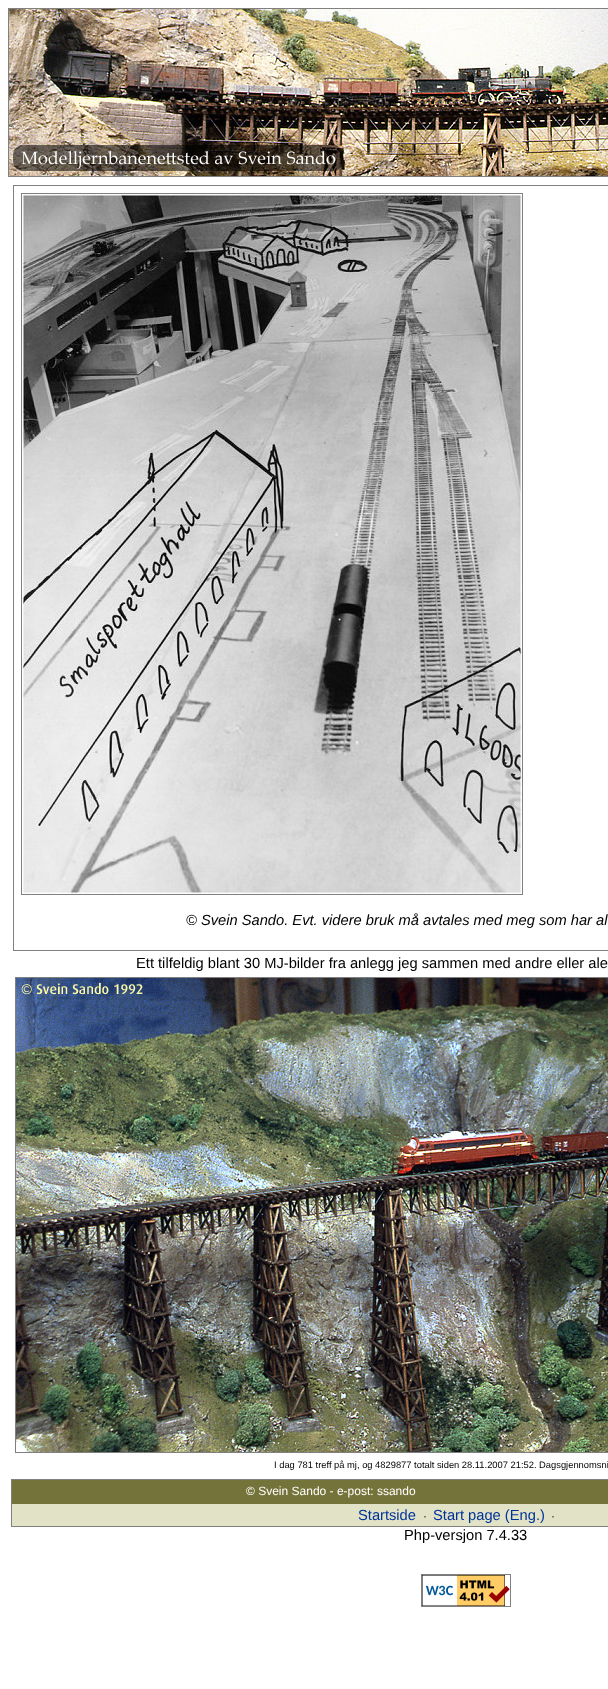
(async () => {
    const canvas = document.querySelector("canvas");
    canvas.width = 608;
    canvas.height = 1689;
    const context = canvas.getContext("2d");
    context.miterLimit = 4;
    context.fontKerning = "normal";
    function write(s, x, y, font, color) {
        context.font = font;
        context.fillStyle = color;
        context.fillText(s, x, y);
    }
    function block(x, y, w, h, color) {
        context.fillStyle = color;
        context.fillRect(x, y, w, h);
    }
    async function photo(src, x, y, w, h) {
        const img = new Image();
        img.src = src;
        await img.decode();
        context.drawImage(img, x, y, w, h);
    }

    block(0, 0, 608, 1689, "rgb(255, 255, 255)");
    context.strokeStyle = "rgb(128, 128, 128)";
    context.strokeRect(8.5, 8.5, 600, 168);
    await photo("media/1.png", 9, 9, 599, 167);
    context.strokeRect(13.5, 185.5, 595, 765);
    context.strokeRect(21.5, 193.5, 501, 701);
    await photo("media/2.png", 22, 194, 500, 700);
    write("© Svein Sando. Evt. videre bruk må avtales med meg som har al", 186, 925, "italic 14.7px Liberation Sans", "rgb(0, 0, 0)");
    write("Ett tilfeldig blant 30 MJ-bilder fra anlegg jeg sammen med andre eller ale", 136, 968, "14.7px Liberation Sans", "rgb(0, 0, 0)");
    context.strokeRect(15.5, 977.5, 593, 475);
    await photo("media/3.png", 16, 978, 592, 474);
    write("I dag 781 treff på mj, og 4829877 totalt siden 28.11.2007 21:52. Dagsgjennomsni", 274, 1468, "9.35px Liberation Sans", "rgb(0, 0, 0)");
    context.strokeRect(11.5, 1479.5, 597, 47);
    block(12, 1480, 596, 24, "rgb(116, 116, 58)");
    write("© Svein Sando - e-post: ssando", 246, 1495, "12px Liberation Sans", "rgb(255, 255, 255)");
    block(12, 1504, 596, 22, "rgb(226, 226, 199)");
    write("Startside", 358, 1520, "14.7px Liberation Sans", "rgb(0, 51, 153)");
    write("·", 423, 1520, "12px Liberation Sans", "rgb(51, 51, 51)");
    write("Start page (Eng.)", 433, 1520, "14.7px Liberation Sans", "rgb(0, 51, 153)");
    write("·", 551, 1520, "12px Liberation Sans", "rgb(51, 51, 51)");
    write("Php-versjon 7.4.33", 404, 1540, "14.7px Liberation Sans", "rgb(0, 0, 0)");
    context.strokeRect(421.5, 1574.5, 89, 32);
    await photo("media/4.png", 422, 1575, 88, 31);
})();
